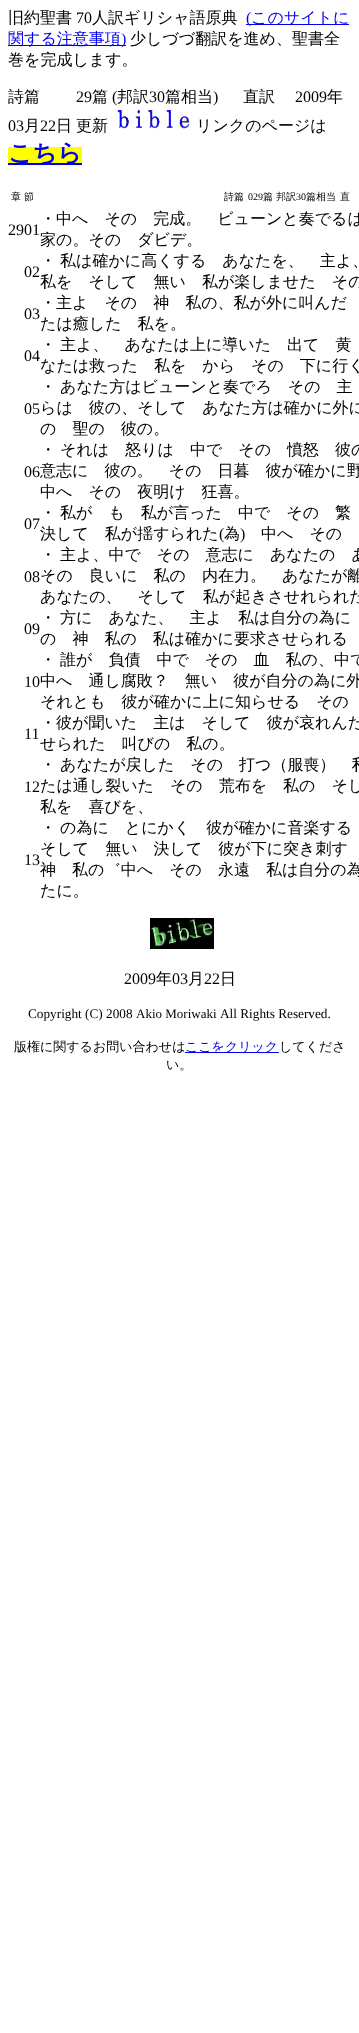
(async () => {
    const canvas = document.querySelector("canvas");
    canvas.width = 359;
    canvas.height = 2033;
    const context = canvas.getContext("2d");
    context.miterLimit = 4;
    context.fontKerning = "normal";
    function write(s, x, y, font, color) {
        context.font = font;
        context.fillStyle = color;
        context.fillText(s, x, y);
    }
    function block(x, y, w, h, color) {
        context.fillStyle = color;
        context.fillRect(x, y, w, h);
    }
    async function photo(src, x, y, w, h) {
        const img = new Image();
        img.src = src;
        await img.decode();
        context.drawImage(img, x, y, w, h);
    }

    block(0, 0, 359, 2033, "rgb(255, 255, 255)");
    write("旧約聖書", 8, 23, "500 16px WenQuanYi Zen Hei", "rgb(0, 0, 0)");
    write("70", 76, 23, "16px Liberation Serif", "rgb(0, 0, 0)");
    write("人訳ギリシャ語原典", 92, 23, "500 16px WenQuanYi Zen Hei", "rgb(0, 0, 0)");
    block(246, 24, 103, 1, "rgb(0, 0, 238)");
    write("(", 246, 23, "16px Liberation Serif", "rgb(0, 0, 238)");
    write("このサイトに", 251, 23, "500 16px WenQuanYi Zen Hei", "rgb(0, 0, 238)");
    block(8, 45, 118, 1, "rgb(0, 0, 238)");
    write("関する注意事項", 8, 44, "500 16px WenQuanYi Zen Hei", "rgb(0, 0, 238)");
    write(")", 121, 44, "16px Liberation Serif", "rgb(0, 0, 238)");
    write("少しづづ翻訳を進め、聖書全", 130, 44, "500 16px WenQuanYi Zen Hei", "rgb(0, 0, 0)");
    write("巻を完成します。", 8, 65, "500 16px WenQuanYi Zen Hei", "rgb(0, 0, 0)");
    write("詩篇", 8, 102, "500 16px WenQuanYi Zen Hei", "rgb(0, 0, 0)");
    write("29", 76, 102, "16px Liberation Serif", "rgb(0, 0, 0)");
    write("篇", 92, 102, "500 16px WenQuanYi Zen Hei", "rgb(0, 0, 0)");
    write("(", 112, 102, "16px Liberation Serif", "rgb(0, 0, 0)");
    write("邦訳", 117, 102, "500 16px WenQuanYi Zen Hei", "rgb(0, 0, 0)");
    write("30", 149, 102, "16px Liberation Serif", "rgb(0, 0, 0)");
    write("篇相当", 165, 102, "500 16px WenQuanYi Zen Hei", "rgb(0, 0, 0)");
    write(")", 213, 102, "16px Liberation Serif", "rgb(0, 0, 0)");
    write("直訳", 243, 102, "500 16px WenQuanYi Zen Hei", "rgb(0, 0, 0)");
    write("2009", 295, 102, "16px Liberation Serif", "rgb(0, 0, 0)");
    write("年", 327, 102, "500 16px WenQuanYi Zen Hei", "rgb(0, 0, 0)");
    write("03", 8, 131, "16px Liberation Serif", "rgb(0, 0, 0)");
    write("月", 24, 131, "500 16px WenQuanYi Zen Hei", "rgb(0, 0, 0)");
    write("22", 40, 131, "16px Liberation Serif", "rgb(0, 0, 0)");
    write("日", 56, 131, "500 16px WenQuanYi Zen Hei", "rgb(0, 0, 0)");
    write("更新", 76, 131, "500 16px WenQuanYi Zen Hei", "rgb(0, 0, 0)");
    await photo("media/1.png", 117, 110, 73, 19);
    write("リンクのページは", 196, 131, "500 16px WenQuanYi Zen Hei", "rgb(0, 0, 0)");
    block(8, 147, 74, 16, "rgb(255, 255, 0)");
    block(8, 163, 74, 2, "rgb(0, 0, 238)");
    write("こちら", 8, 161, "bold 24px WenQuanYi Zen Hei", "rgb(0, 0, 238)");
    write("章 節", 11, 200, "500 10px WenQuanYi Zen Hei", "rgb(0, 0, 0)");
    write("詩篇", 224, 200, "500 10px WenQuanYi Zen Hei", "rgb(0, 0, 0)");
    write("029", 248, 200, "10px Liberation Serif", "rgb(0, 0, 0)");
    write("篇 邦訳", 263, 200, "500 10px WenQuanYi Zen Hei", "rgb(0, 0, 0)");
    write("30", 296, 200, "10px Liberation Serif", "rgb(0, 0, 0)");
    write("篇相当", 306, 200, "500 10px WenQuanYi Zen Hei", "rgb(0, 0, 0)");
    write("直", 340, 200, "500 10px WenQuanYi Zen Hei", "rgb(0, 0, 0)");
    write("2901", 8, 235, "16px Liberation Serif", "rgb(0, 0, 0)");
    write("・中へ　その　完成。　ビューンと奏でるは", 40, 224, "500 16px WenQuanYi Zen Hei", "rgb(0, 0, 0)");
    write("家の。その　ダビデ。", 40, 245, "500 16px WenQuanYi Zen Hei", "rgb(0, 0, 0)");
    write("02", 24, 277, "16px Liberation Serif", "rgb(0, 0, 0)");
    write("・", 40, 266, "500 16px WenQuanYi Zen Hei", "rgb(0, 0, 0)");
    write("私は確かに高くする　あなたを、　主よ、", 60, 266, "500 16px WenQuanYi Zen Hei", "rgb(0, 0, 0)");
    write("私を　そして　無い　私が楽しませた　その", 40, 287, "500 16px WenQuanYi Zen Hei", "rgb(0, 0, 0)");
    write("03", 24, 319, "16px Liberation Serif", "rgb(0, 0, 0)");
    write("・主よ　その　神　私の、私が外に叫んだ", 40, 308, "500 16px WenQuanYi Zen Hei", "rgb(0, 0, 0)");
    write("たは癒した　私を。", 40, 329, "500 16px WenQuanYi Zen Hei", "rgb(0, 0, 0)");
    write("04", 24, 361, "16px Liberation Serif", "rgb(0, 0, 0)");
    write("・", 40, 350, "500 16px WenQuanYi Zen Hei", "rgb(0, 0, 0)");
    write("主よ、　あなたは上に導いた　出て　黄", 60, 350, "500 16px WenQuanYi Zen Hei", "rgb(0, 0, 0)");
    write("なたは救った　私を　から　その　下に行く", 40, 371, "500 16px WenQuanYi Zen Hei", "rgb(0, 0, 0)");
    write("05", 24, 414, "16px Liberation Serif", "rgb(0, 0, 0)");
    write("・", 40, 392, "500 16px WenQuanYi Zen Hei", "rgb(0, 0, 0)");
    write("あなた方はビューンと奏でろ　その　主", 60, 392, "500 16px WenQuanYi Zen Hei", "rgb(0, 0, 0)");
    write("らは　彼の、そして　あなた方は確かに外に", 40, 413, "500 16px WenQuanYi Zen Hei", "rgb(0, 0, 0)");
    write("の　聖の　彼の。", 40, 434, "500 16px WenQuanYi Zen Hei", "rgb(0, 0, 0)");
    write("06", 24, 477, "16px Liberation Serif", "rgb(0, 0, 0)");
    write("・", 40, 455, "500 16px WenQuanYi Zen Hei", "rgb(0, 0, 0)");
    write("それは　怒りは　中で　その　憤怒　彼の", 60, 455, "500 16px WenQuanYi Zen Hei", "rgb(0, 0, 0)");
    write("意志に　彼の。　その　日暮　彼が確かに野", 40, 476, "500 16px WenQuanYi Zen Hei", "rgb(0, 0, 0)");
    write("中へ　その　夜明け　狂喜。", 40, 497, "500 16px WenQuanYi Zen Hei", "rgb(0, 0, 0)");
    write("07", 24, 529, "16px Liberation Serif", "rgb(0, 0, 0)");
    write("・", 40, 518, "500 16px WenQuanYi Zen Hei", "rgb(0, 0, 0)");
    write("私が　も　私が言った　中で　その　繁", 60, 518, "500 16px WenQuanYi Zen Hei", "rgb(0, 0, 0)");
    write("決して　私が揺すられた", 40, 539, "500 16px WenQuanYi Zen Hei", "rgb(0, 0, 0)");
    write("(", 219, 539, "16px Liberation Serif", "rgb(0, 0, 0)");
    write("為", 224, 539, "500 16px WenQuanYi Zen Hei", "rgb(0, 0, 0)");
    write(")", 240, 539, "16px Liberation Serif", "rgb(0, 0, 0)");
    write("中へ　その", 261, 539, "500 16px WenQuanYi Zen Hei", "rgb(0, 0, 0)");
    write("08", 24, 582, "16px Liberation Serif", "rgb(0, 0, 0)");
    write("・", 40, 560, "500 16px WenQuanYi Zen Hei", "rgb(0, 0, 0)");
    write("主よ、中で　その　意志に　あなたの　あ", 60, 560, "500 16px WenQuanYi Zen Hei", "rgb(0, 0, 0)");
    write("その　良いに　私の　内在力。　あなたが離", 40, 581, "500 16px WenQuanYi Zen Hei", "rgb(0, 0, 0)");
    write("あなたの、　そして　私が起きさせれられた", 40, 602, "500 16px WenQuanYi Zen Hei", "rgb(0, 0, 0)");
    write("09", 24, 634, "16px Liberation Serif", "rgb(0, 0, 0)");
    write("・", 40, 623, "500 16px WenQuanYi Zen Hei", "rgb(0, 0, 0)");
    write("方に　あなた、　主よ　私は自分の為に", 60, 623, "500 16px WenQuanYi Zen Hei", "rgb(0, 0, 0)");
    write("の　神　私の　私は確かに要求させられる", 40, 644, "500 16px WenQuanYi Zen Hei", "rgb(0, 0, 0)");
    write("10", 24, 687, "16px Liberation Serif", "rgb(0, 0, 0)");
    write("・", 40, 665, "500 16px WenQuanYi Zen Hei", "rgb(0, 0, 0)");
    write("誰が　負債　中で　その　血　私の、中で", 60, 665, "500 16px WenQuanYi Zen Hei", "rgb(0, 0, 0)");
    write("中へ　通し腐敗？　無い　彼が自分の為に外", 40, 686, "500 16px WenQuanYi Zen Hei", "rgb(0, 0, 0)");
    write("それとも　彼が確かに上に知らせる　その", 40, 707, "500 16px WenQuanYi Zen Hei", "rgb(0, 0, 0)");
    write("11", 24, 739, "16px Liberation Serif", "rgb(0, 0, 0)");
    write("・彼が聞いた　主は　そして　彼が哀れんだ", 40, 728, "500 16px WenQuanYi Zen Hei", "rgb(0, 0, 0)");
    write("せられた　叫びの　私の。", 40, 749, "500 16px WenQuanYi Zen Hei", "rgb(0, 0, 0)");
    write("12", 24, 792, "16px Liberation Serif", "rgb(0, 0, 0)");
    write("・", 40, 770, "500 16px WenQuanYi Zen Hei", "rgb(0, 0, 0)");
    write("あなたが戻した　その　打つ（服喪）　私", 60, 770, "500 16px WenQuanYi Zen Hei", "rgb(0, 0, 0)");
    write("たは通し裂いた　その　荒布を　私の　そし", 40, 791, "500 16px WenQuanYi Zen Hei", "rgb(0, 0, 0)");
    write("私を　喜びを、", 40, 812, "500 16px WenQuanYi Zen Hei", "rgb(0, 0, 0)");
    write("13", 24, 865, "16px Liberation Serif", "rgb(0, 0, 0)");
    write("・", 40, 833, "500 16px WenQuanYi Zen Hei", "rgb(0, 0, 0)");
    write("の為に　とにかく　彼が確かに音楽する", 60, 833, "500 16px WenQuanYi Zen Hei", "rgb(0, 0, 0)");
    write("そして　無い　決して　彼が下に突き刺す", 40, 854, "500 16px WenQuanYi Zen Hei", "rgb(0, 0, 0)");
    write("神　私の゛中へ　その　永遠　私は自分の為", 40, 875, "500 16px WenQuanYi Zen Hei", "rgb(0, 0, 0)");
    write("たに。", 40, 896, "500 16px WenQuanYi Zen Hei", "rgb(0, 0, 0)");
    await photo("media/2.png", 150, 918, 64, 31);
    write("2009", 124, 984, "16px Liberation Serif", "rgb(0, 0, 0)");
    write("年", 156, 984, "500 16px WenQuanYi Zen Hei", "rgb(0, 0, 0)");
    write("03", 172, 984, "16px Liberation Serif", "rgb(0, 0, 0)");
    write("月", 188, 984, "500 16px WenQuanYi Zen Hei", "rgb(0, 0, 0)");
    write("22", 204, 984, "16px Liberation Serif", "rgb(0, 0, 0)");
    write("日", 220, 984, "500 16px WenQuanYi Zen Hei", "rgb(0, 0, 0)");
    write("Copyright (C) 2008", 28, 1018, "13.25px Liberation Serif", "rgb(0, 0, 0)");
    write("Akio Moriwaki", 136, 1018, "13px Liberation Serif", "rgb(0, 0, 0)");
    write("All Rights Reserved.", 220, 1018, "13.25px Liberation Serif", "rgb(0, 0, 0)");
    write("版権に関するお問い合わせは", 14, 1051, "500 13px WenQuanYi Zen Hei", "rgb(0, 0, 0)");
    block(185, 1052, 94, 1, "rgb(0, 0, 238)");
    write("ここをクリック", 185, 1051, "500 13px WenQuanYi Zen Hei", "rgb(0, 0, 238)");
    write("してくださ", 279, 1051, "500 13px WenQuanYi Zen Hei", "rgb(0, 0, 0)");
    write("い。", 166, 1069, "500 13px WenQuanYi Zen Hei", "rgb(0, 0, 0)");
})();
